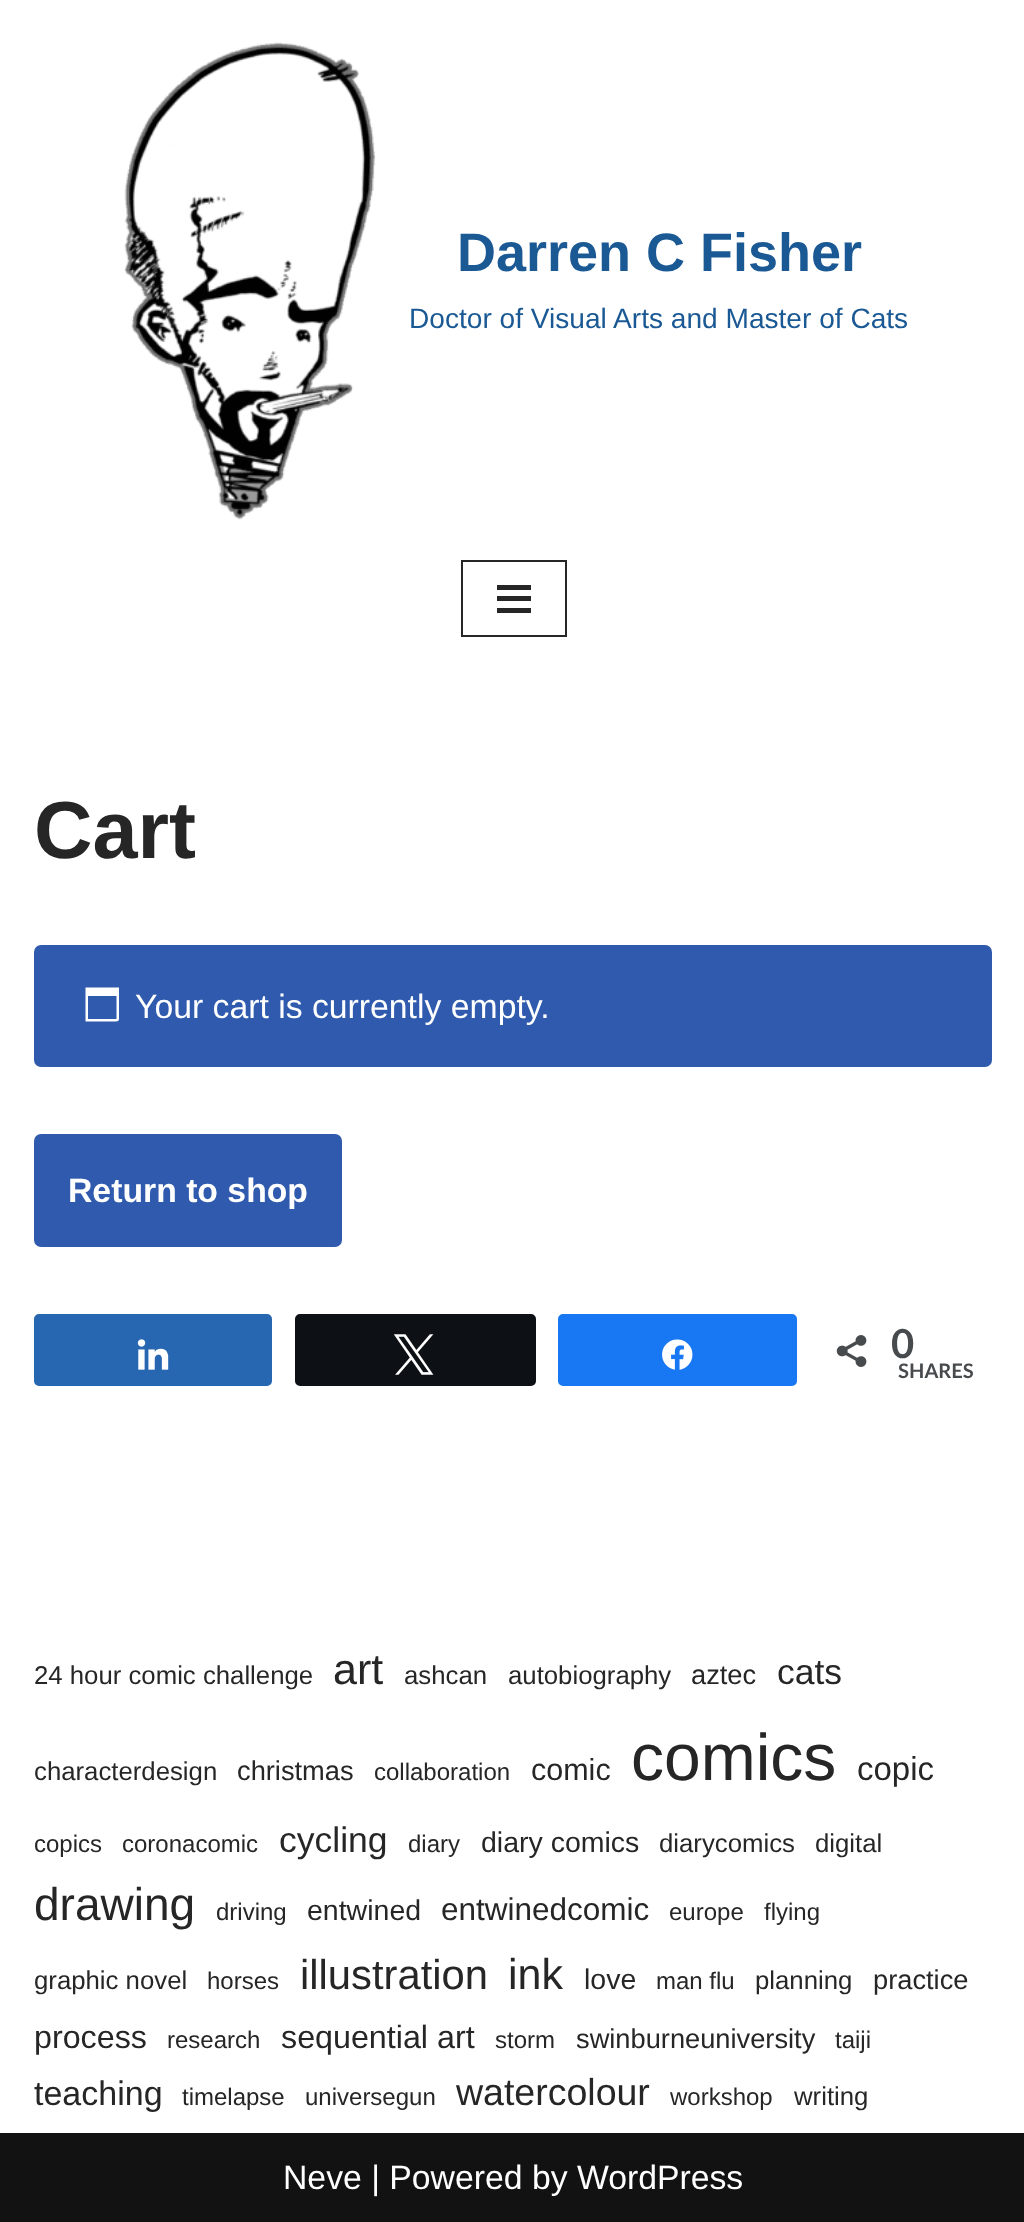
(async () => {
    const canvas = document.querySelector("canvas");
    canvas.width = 1024;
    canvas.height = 2222;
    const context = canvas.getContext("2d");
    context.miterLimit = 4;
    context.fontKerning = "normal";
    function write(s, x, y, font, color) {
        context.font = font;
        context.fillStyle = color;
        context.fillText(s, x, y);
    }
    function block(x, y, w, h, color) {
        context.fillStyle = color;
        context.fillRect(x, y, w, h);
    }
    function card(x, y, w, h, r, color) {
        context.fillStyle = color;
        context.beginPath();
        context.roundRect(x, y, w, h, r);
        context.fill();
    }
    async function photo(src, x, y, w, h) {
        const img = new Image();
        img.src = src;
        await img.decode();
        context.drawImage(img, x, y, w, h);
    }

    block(0, 0, 1024, 2222, "rgb(255, 255, 255)");
    await photo("media/1.png", 124, 42, 252, 478);
    write("Darren C Fisher", 457, 271, "bold 54px Liberation Sans", "rgb(26, 89, 148)");
    write("Doctor of Visual Arts and Master of Cats", 409, 328, "28.1px Liberation Sans", "rgb(26, 89, 148)");
    context.strokeStyle = "rgb(39, 38, 38)";
    context.lineWidth = 2;
    context.strokeRect(462, 561, 104, 75);
    block(497, 585, 34, 5, "rgb(39, 38, 38)");
    block(497, 596, 34, 5, "rgb(39, 38, 38)");
    block(497, 608, 34, 5, "rgb(39, 38, 38)");
    write("Cart", 34, 858, "bold 81px Liberation Sans", "rgb(39, 38, 38)");
    card(34, 945, 958, 122, 7, "rgb(47, 90, 174)");
    context.fillStyle = "rgb(255, 255, 255)";
    context.beginPath();
    context.moveTo(116.5, 996);
    context.lineTo(88, 996);
    context.lineTo(88, 1019);
    context.lineTo(116.5, 1019);
    context.closePath();
    context.moveTo(119, 987.5);
    context.lineTo(119, 1013.5);
    context.bezierCurveTo(119, 1022, 120, 1021.5, 111.5, 1021.5);
    context.lineTo(85.5, 1021.5);
    context.lineTo(85.5, 987.5);
    context.closePath();
    context.fill();
    write("Your cart is currently empty.", 135, 1018, "33.75px Liberation Sans", "rgb(255, 255, 255)");
    card(34, 1134, 308, 113, 7, "rgb(47, 90, 174)");
    write("Return to shop", 68, 1202, "bold 33.75px Liberation Sans", "rgb(255, 255, 255)");
    context.fillStyle = "rgb(39, 103, 177)";
    context.beginPath();
    context.roundRect(35, 1315, 236, 70, 4);
    context.fill();
    context.strokeStyle = "rgb(39, 103, 177)";
    context.stroke();
    await photo("media/2.png", 137, 1339, 32, 31);
    context.fillStyle = "rgb(13, 16, 20)";
    context.beginPath();
    context.roundRect(296, 1315, 239, 70, 4);
    context.fill();
    context.strokeStyle = "rgb(13, 16, 20)";
    context.stroke();
    await photo("media/3.png", 393, 1334, 41, 41);
    context.fillStyle = "rgb(24, 119, 242)";
    context.beginPath();
    context.roundRect(559, 1315, 237, 70, 4);
    context.fill();
    context.strokeStyle = "rgb(24, 119, 242)";
    context.stroke();
    await photo("media/4.png", 662, 1339, 31, 31);
    await photo("media/5.png", 836, 1335, 31, 32);
    write("0", 891, 1358, "bold 40px Lato", "rgb(71, 75, 77)");
    write("SHARES", 898, 1378, "bold 20px Lato", "rgb(71, 75, 77)");
    write("24 hour comic challenge", 34, 1684, "25.75px Liberation Sans", "rgb(39, 38, 38)");
    write("art", 333, 1684, "43px Liberation Sans", "rgb(39, 38, 38)");
    write("ashcan", 404, 1684, "25.75px Liberation Sans", "rgb(39, 38, 38)");
    write("autobiography", 508, 1684, "25.75px Liberation Sans", "rgb(39, 38, 38)");
    write("aztec", 691, 1684, "27.25px Liberation Sans", "rgb(39, 38, 38)");
    write("cats", 777, 1684, "35.5px Liberation Sans", "rgb(39, 38, 38)");
    write("characterdesign", 34, 1780, "25.75px Liberation Sans", "rgb(39, 38, 38)");
    write("christmas", 237, 1780, "27.25px Liberation Sans", "rgb(39, 38, 38)");
    write("collaboration", 374, 1780, "24px Liberation Sans", "rgb(39, 38, 38)");
    write("comic", 531, 1780, "30.5px Liberation Sans", "rgb(39, 38, 38)");
    write("comics", 631, 1780, "66px Liberation Sans", "rgb(39, 38, 38)");
    write("copic", 857, 1780, "33px Liberation Sans", "rgb(39, 38, 38)");
    write("copics", 34, 1852, "24px Liberation Sans", "rgb(39, 38, 38)");
    write("coronacomic", 122, 1852, "24px Liberation Sans", "rgb(39, 38, 38)");
    write("cycling", 279, 1852, "35.5px Liberation Sans", "rgb(39, 38, 38)");
    write("diary", 408, 1852, "24px Liberation Sans", "rgb(39, 38, 38)");
    write("diary comics", 481, 1852, "28.5px Liberation Sans", "rgb(39, 38, 38)");
    write("diarycomics", 659, 1852, "25.75px Liberation Sans", "rgb(39, 38, 38)");
    write("digital", 815, 1852, "25.75px Liberation Sans", "rgb(39, 38, 38)");
    write("drawing", 34, 1920, "46px Liberation Sans", "rgb(39, 38, 38)");
    write("driving", 216, 1920, "24px Liberation Sans", "rgb(39, 38, 38)");
    write("entwined", 307, 1920, "28.5px Liberation Sans", "rgb(39, 38, 38)");
    write("entwinedcomic", 441, 1920, "31.5px Liberation Sans", "rgb(39, 38, 38)");
    write("europe", 669, 1920, "24px Liberation Sans", "rgb(39, 38, 38)");
    write("flying", 764, 1920, "24px Liberation Sans", "rgb(39, 38, 38)");
    write("graphic novel", 34, 1989, "25.75px Liberation Sans", "rgb(39, 38, 38)");
    write("horses", 207, 1989, "24px Liberation Sans", "rgb(39, 38, 38)");
    write("illustration", 300, 1989, "41.75px Liberation Sans", "rgb(39, 38, 38)");
    write("ink", 508, 1989, "43px Liberation Sans", "rgb(39, 38, 38)");
    write("love", 584, 1989, "28.5px Liberation Sans", "rgb(39, 38, 38)");
    write("man flu", 656, 1989, "24px Liberation Sans", "rgb(39, 38, 38)");
    write("planning", 755, 1989, "25.75px Liberation Sans", "rgb(39, 38, 38)");
    write("practice", 873, 1989, "27.25px Liberation Sans", "rgb(39, 38, 38)");
    write("process", 34, 2048, "32.25px Liberation Sans", "rgb(39, 38, 38)");
    write("research", 167, 2048, "24px Liberation Sans", "rgb(39, 38, 38)");
    write("sequential art", 281, 2048, "32.25px Liberation Sans", "rgb(39, 38, 38)");
    write("storm", 495, 2048, "24px Liberation Sans", "rgb(39, 38, 38)");
    write("swinburneuniversity", 576, 2048, "27.25px Liberation Sans", "rgb(39, 38, 38)");
    write("taiji", 835, 2048, "24px Liberation Sans", "rgb(39, 38, 38)");
    write("teaching", 34, 2105, "34px Liberation Sans", "rgb(39, 38, 38)");
    write("timelapse", 182, 2105, "24px Liberation Sans", "rgb(39, 38, 38)");
    write("universegun", 305, 2105, "24px Liberation Sans", "rgb(39, 38, 38)");
    write("watercolour", 456, 2105, "37.5px Liberation Sans", "rgb(39, 38, 38)");
    write("workshop", 670, 2105, "24px Liberation Sans", "rgb(39, 38, 38)");
    write("writing", 794, 2105, "25.75px Liberation Sans", "rgb(39, 38, 38)");
    block(0, 2133, 1024, 89, "rgb(18, 18, 18)");
    write("Neve | Powered by WordPress", 283, 2189, "33.75px Liberation Sans", "rgb(255, 255, 255)");
})();
